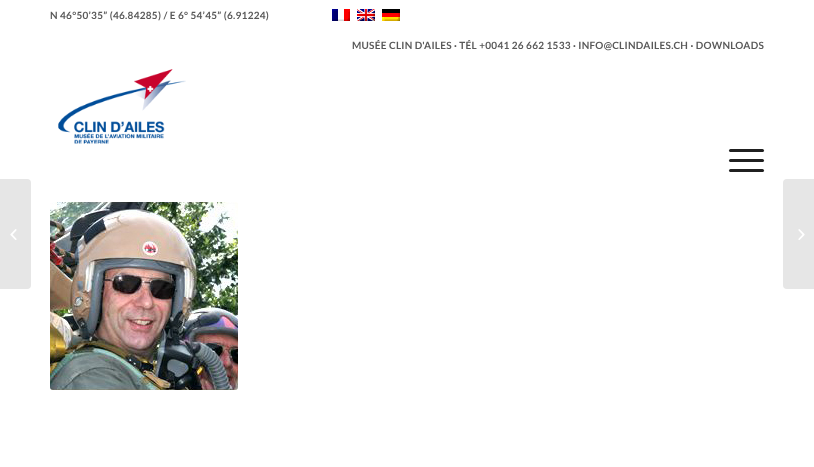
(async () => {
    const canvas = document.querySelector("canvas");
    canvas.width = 814;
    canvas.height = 467;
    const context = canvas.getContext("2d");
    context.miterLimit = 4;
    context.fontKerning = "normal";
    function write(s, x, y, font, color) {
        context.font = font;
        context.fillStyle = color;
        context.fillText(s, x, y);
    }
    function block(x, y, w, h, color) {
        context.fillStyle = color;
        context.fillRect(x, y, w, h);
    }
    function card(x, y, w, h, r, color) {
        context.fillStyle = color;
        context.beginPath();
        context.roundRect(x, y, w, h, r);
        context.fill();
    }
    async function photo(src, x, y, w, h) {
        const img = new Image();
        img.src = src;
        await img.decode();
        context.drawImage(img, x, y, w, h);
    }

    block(0, 0, 814, 467, "rgb(255, 255, 255)");
    context.letterSpacing = "0.27px";
    write("N 46°50’35” (46.84285) / E 6° 54’45” (6.91224)", 50, 19, "bold 10px Lato", "rgb(89, 89, 89)");
    await photo("media/1.png", 332, 9, 18, 12);
    await photo("media/2.png", 357, 9, 18, 12);
    await photo("media/3.png", 382, 9, 18, 12);
    write("MUSÉE CLIN D'AILES · TÉL +0041 26 662 1533 · INFO@CLINDAILES.CH · DOWNLOADS", 352, 49, "bold 10px Lato", "rgb(89, 89, 89)");
    await photo("media/4.png", 58, 69, 128, 75);
    card(729, 159, 35, 3, 1.5, "rgb(32, 32, 32)");
    card(729, 149, 35, 3, 1.5, "rgb(32, 32, 32)");
    card(729, 169, 35, 3, 1.5, "rgb(32, 32, 32)");
    context.fillStyle = "rgb(230, 230, 230)";
    context.beginPath();
    context.roundRect(0, 179, 31, 110, [0, 4, 4, 0]);
    context.fill();
    await photo("media/5.png", 10, 229, 7, 11);
    await photo("media/6.png", 50, 202, 188, 188);
    context.beginPath();
    context.roundRect(783, 179, 31, 110, [4, 0, 0, 4]);
    context.fill();
    await photo("media/7.png", 798, 229, 7, 11);
})();
